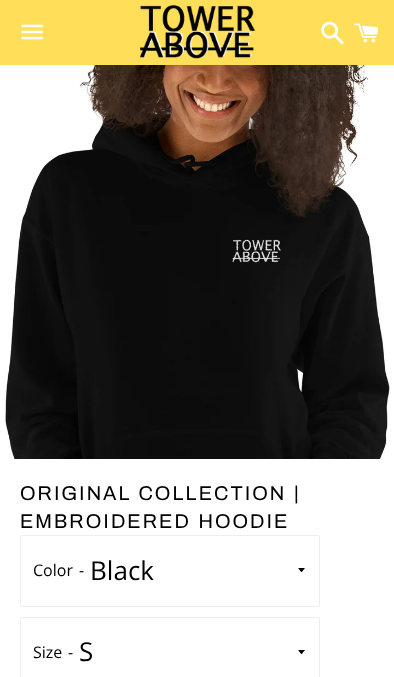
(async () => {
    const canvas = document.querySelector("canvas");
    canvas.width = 394;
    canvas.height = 677;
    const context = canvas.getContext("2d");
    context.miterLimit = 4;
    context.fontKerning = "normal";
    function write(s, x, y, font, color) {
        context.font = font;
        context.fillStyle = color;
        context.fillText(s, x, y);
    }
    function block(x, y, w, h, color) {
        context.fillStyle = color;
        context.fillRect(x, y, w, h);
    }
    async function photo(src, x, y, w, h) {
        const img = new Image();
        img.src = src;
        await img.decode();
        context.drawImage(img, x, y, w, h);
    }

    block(0, 0, 394, 677, "rgb(255, 255, 255)");
    block(0, 0, 394, 65, "rgb(255, 222, 89)");
    await photo("media/1.png", 21, 24, 23, 16);
    await photo("media/2.png", 140, 4, 116, 55);
    await photo("media/3.png", 321, 21, 23, 24);
    await photo("media/4.png", 354, 23, 25, 20);
    await photo("media/5.png", 4, 65, 386, 394);
    context.letterSpacing = "2px";
    write("ORIGINAL COLLECTION |", 20, 500, "20px Archivo", "rgb(0, 0, 0)");
    write("EMBROIDERED HOODIE", 20, 528, "20px Archivo", "rgb(0, 0, 0)");
    context.beginPath();
    context.roundRect(20.5, 535.5, 299, 71, 1.5);
    context.strokeStyle = "rgb(236, 239, 241)";
    context.stroke();
    context.letterSpacing = "0px";
    write("Color", 33, 576, "16px Open Sans", "rgb(0, 0, 0)");
    write("-", 79, 576, "16px Open Sans", "rgb(0, 0, 0)");
    context.beginPath();
    context.moveTo(298, 568);
    context.bezierCurveTo(302.5, 573.5, 300.5, 573.5, 305, 568);
    context.closePath();
    context.fill();
    write("Black", 90, 580, "26px Open Sans", "rgb(0, 0, 0)");
    context.beginPath();
    context.roundRect(20.5, 617.5, 299, 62, 1.5);
    context.stroke();
    write("Size", 33, 658, "16px Open Sans", "rgb(0, 0, 0)");
    write("-", 68, 658, "16px Open Sans", "rgb(0, 0, 0)");
    context.beginPath();
    context.moveTo(298, 650);
    context.bezierCurveTo(302.5, 655.5, 300.5, 655.5, 305, 650);
    context.closePath();
    context.fill();
    write("S", 79, 661, "26px Open Sans", "rgb(0, 0, 0)");
})();
